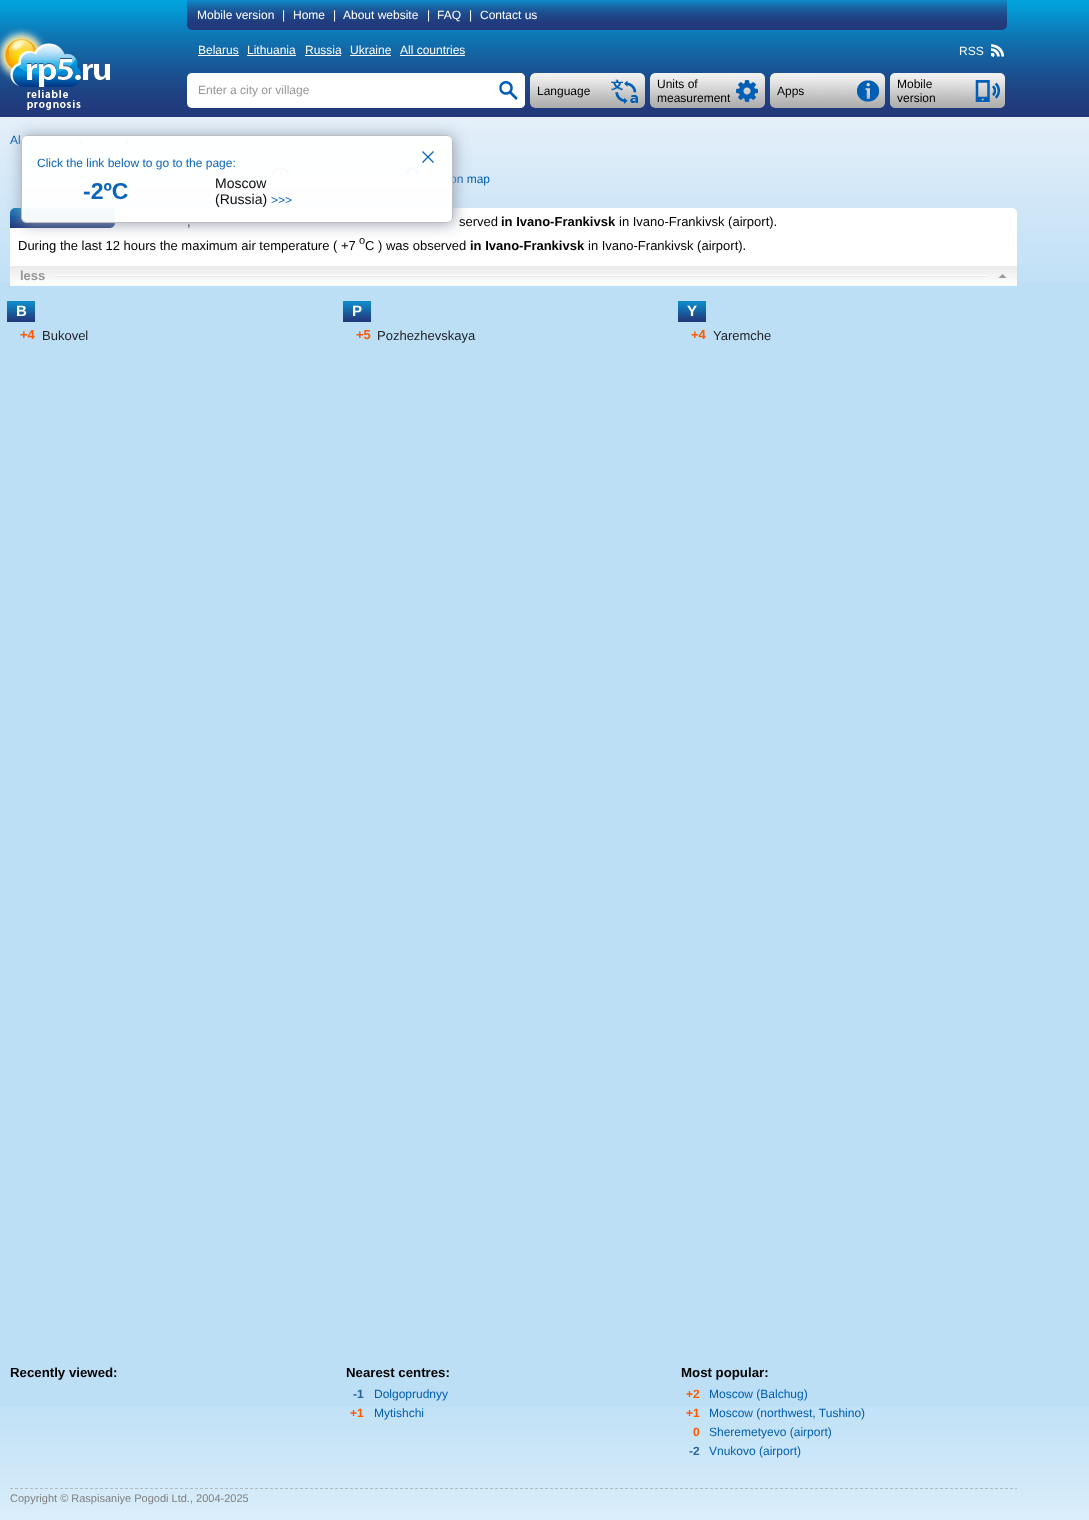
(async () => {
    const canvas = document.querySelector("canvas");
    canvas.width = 1089;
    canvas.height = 1520;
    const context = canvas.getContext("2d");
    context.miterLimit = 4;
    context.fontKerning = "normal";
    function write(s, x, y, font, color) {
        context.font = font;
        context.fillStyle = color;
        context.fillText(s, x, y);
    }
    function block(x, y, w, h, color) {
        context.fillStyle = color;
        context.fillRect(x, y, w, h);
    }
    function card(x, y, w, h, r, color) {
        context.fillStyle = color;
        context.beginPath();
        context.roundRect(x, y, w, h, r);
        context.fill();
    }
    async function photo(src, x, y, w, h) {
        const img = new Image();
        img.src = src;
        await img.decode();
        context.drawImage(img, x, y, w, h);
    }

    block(0, 0, 1089, 1520, "rgb(189, 223, 246)");
    await photo("media/1.png", 0, 123, 1089, 159);
    await photo("media/2.png", 0, 0, 1089, 123);
    await photo("media/3.png", 187, 0, 820, 30);
    write("Mobile version", 197, 19, "12px Liberation Sans", "rgb(255, 255, 255)");
    write("|", 282, 19, "12px Liberation Sans", "rgb(255, 255, 255)");
    write("Home", 293, 19, "12px Liberation Sans", "rgb(255, 255, 255)");
    write("|", 333, 19, "12px Liberation Sans", "rgb(255, 255, 255)");
    write("About website", 343, 19, "12px Liberation Sans", "rgb(255, 255, 255)");
    write("|", 427, 19, "12px Liberation Sans", "rgb(255, 255, 255)");
    write("FAQ", 437, 19, "12px Liberation Sans", "rgb(255, 255, 255)");
    write("|", 469, 19, "12px Liberation Sans", "rgb(255, 255, 255)");
    write("Contact us", 480, 19, "12px Liberation Sans", "rgb(255, 255, 255)");
    await photo("media/4.png", 0, 27, 110, 83);
    write("Belarus", 198, 54, "12px Liberation Sans", "rgb(255, 255, 255)");
    block(198, 55, 41, 1, "rgb(255, 255, 255)");
    write("Lithuania", 247, 54, "12px Liberation Sans", "rgb(255, 255, 255)");
    block(247, 55, 49, 1, "rgb(255, 255, 255)");
    write("Russia", 305, 54, "12px Liberation Sans", "rgb(255, 255, 255)");
    block(305, 55, 36, 1, "rgb(255, 255, 255)");
    write("Ukraine", 350, 54, "12px Liberation Sans", "rgb(255, 255, 255)");
    block(350, 55, 41, 1, "rgb(255, 255, 255)");
    write("All countries", 400, 54, "12px Liberation Sans", "rgb(255, 255, 255)");
    block(400, 55, 65, 1, "rgb(255, 255, 255)");
    write("RSS", 959, 55, "12px Liberation Sans", "rgb(255, 255, 255)");
    await photo("media/5.png", 991, 44, 13, 13);
    card(187, 73, 338, 35, 5, "rgb(255, 255, 255)");
    write("Enter a city or village", 198, 94, "12px Liberation Sans", "rgb(150, 150, 150)");
    await photo("media/6.png", 499, 73, 26, 35);
    await photo("media/7.png", 530, 73, 115, 35);
    write("Language", 537, 95, "12px Liberation Sans", "rgb(0, 0, 0)");
    await photo("media/8.png", 650, 73, 115, 35);
    write("Units of", 657, 88, "12px Liberation Sans", "rgb(0, 0, 0)");
    write("measurement", 657, 102, "12px Liberation Sans", "rgb(0, 0, 0)");
    await photo("media/9.png", 770, 73, 115, 35);
    write("Apps", 777, 95, "12px Liberation Sans", "rgb(0, 0, 0)");
    await photo("media/10.png", 890, 73, 115, 35);
    write("Mobile", 897, 88, "12px Liberation Sans", "rgb(0, 0, 0)");
    write("version", 897, 102, "12px Liberation Sans", "rgb(0, 0, 0)");
    write("Al", 10, 144, "12px Liberation Sans", "rgb(0, 94, 181)");
    block(79, 139, 3, 5, "rgb(0, 150, 222)");
    block(125, 139, 3, 5, "rgb(0, 150, 222)");
    await photo("media/11.png", 271, 167, 19, 19);
    await photo("media/12.png", 406, 167, 13, 18);
    write("on map", 450, 183, "12px Liberation Sans", "rgb(0, 94, 181)");
    context.fillStyle = "rgb(255, 255, 255)";
    context.beginPath();
    context.roundRect(10, 208, 1007, 58, [5, 5, 0, 0]);
    context.fill();
    await photo("media/13.png", 10, 208, 105, 20);
    write(",", 187, 226, "13px Liberation Sans", "rgb(0, 0, 0)");
    write("served", 459, 226, "13px Liberation Sans", "rgb(0, 0, 0)");
    write("in Ivano-Frankivsk", 501, 226, "bold 13px Liberation Sans", "rgb(0, 0, 0)");
    write("in Ivano-Frankivsk (airport).", 619, 226, "13px Liberation Sans", "rgb(0, 0, 0)");
    write("During the last 12 hours the maximum air temperature ( +7", 18, 250, "13px Liberation Sans", "rgb(0, 0, 0)");
    write("o", 359, 244, "11px Liberation Sans", "rgb(0, 0, 0)");
    write("C ) was observed", 365, 250, "13px Liberation Sans", "rgb(0, 0, 0)");
    write("in Ivano-Frankivsk", 470, 250, "bold 13px Liberation Sans", "rgb(0, 0, 0)");
    write("in Ivano-Frankivsk (airport).", 588, 250, "13px Liberation Sans", "rgb(0, 0, 0)");
    await photo("media/14.png", 10, 266, 1007, 20);
    block(10, 275, 45, 2, "rgb(244, 244, 244)");
    write("less", 20, 280, "bold 13px Liberation Sans", "rgb(150, 150, 150)");
    await photo("media/15.png", 987, 274, 30, 4);
    await photo("media/16.png", 7, 301, 28, 21);
    write("B", 16, 316, "bold 15px Liberation Sans", "rgb(255, 255, 255)");
    write("+4", 20, 339, "bold 13px Liberation Sans", "rgb(255, 89, 0)");
    write("Bukovel", 42, 340, "13px Liberation Sans", "rgb(33, 36, 43)");
    await photo("media/16.png", 343, 301, 28, 21);
    write("P", 352, 316, "bold 15px Liberation Sans", "rgb(255, 255, 255)");
    write("+5", 356, 339, "bold 13px Liberation Sans", "rgb(255, 89, 0)");
    write("Pozhezhevskaya", 377, 340, "13px Liberation Sans", "rgb(33, 36, 43)");
    await photo("media/16.png", 678, 301, 28, 21);
    write("Y", 687, 316, "bold 15px Liberation Sans", "rgb(255, 255, 255)");
    write("+4", 691, 339, "bold 13px Liberation Sans", "rgb(255, 89, 0)");
    write("Yaremche", 713, 340, "13px Liberation Sans", "rgb(33, 36, 43)");
    context.save();
    context.beginPath();
    context.moveTo(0, 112);
    context.lineTo(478, 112);
    context.lineTo(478, 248);
    context.lineTo(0, 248);
    context.closePath();
    context.moveTo(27, 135);
    context.lineTo(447, 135);
    context.bezierCurveTo(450.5, 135, 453, 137.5, 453, 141);
    context.lineTo(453, 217);
    context.bezierCurveTo(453, 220.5, 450.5, 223, 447, 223);
    context.lineTo(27, 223);
    context.bezierCurveTo(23.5, 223, 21, 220.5, 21, 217);
    context.lineTo(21, 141);
    context.bezierCurveTo(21, 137.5, 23.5, 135, 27, 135);
    context.closePath();
    context.clip("evenodd");
    context.fillStyle = "rgba(150, 156, 175, 0.96)";
    context.filter = "blur(7.5px)";
    context.beginPath();
    context.roundRect(22, 136, 432, 88, 6);
    context.fill();
    context.filter = "none";
    context.restore();
    card(21, 135, 432, 88, 6, "rgba(255, 255, 255, 0.96)");
    context.beginPath();
    context.roundRect(21.5, 135.5, 431, 87, 5.5);
    context.strokeStyle = "rgba(187, 187, 187, 0.96)";
    context.stroke();
    write("Click the link below to go to the page:", 37, 167, "12px Liberation Sans", "rgb(10, 100, 184)");
    await photo("media/17.png", 422, 151, 12, 12);
    block(271, 175, 148, 11, "rgba(255, 255, 255, 0.96)");
    write("-2ºC", 83, 199, "bold 23px Liberation Sans", "rgb(10, 100, 184)");
    write("Moscow", 215, 188, "14px Liberation Sans", "rgb(10, 10, 10)");
    write("(Russia)", 215, 204, "14px Liberation Sans", "rgb(10, 10, 10)");
    write(">>>", 271, 204, "12px Liberation Sans", "rgb(10, 100, 184)");
    await photo("media/18.png", 0, 1407, 1089, 113);
    write("Recently viewed:", 10, 1377, "bold 13.25px Liberation Sans", "rgb(0, 0, 0)");
    write("Nearest centres:", 346, 1377, "bold 13.25px Liberation Sans", "rgb(0, 0, 0)");
    write("-1", 353, 1398, "bold 12px Liberation Sans", "rgb(43, 99, 160)");
    write("Dolgoprudnyy", 374, 1398, "12px Liberation Sans", "rgb(0, 94, 181)");
    write("+1", 350, 1417, "bold 12px Liberation Sans", "rgb(255, 89, 0)");
    write("Mytishchi", 374, 1417, "12px Liberation Sans", "rgb(0, 94, 181)");
    write("Most popular:", 681, 1377, "bold 13.25px Liberation Sans", "rgb(0, 0, 0)");
    write("+2", 686, 1398, "bold 12px Liberation Sans", "rgb(255, 89, 0)");
    write("Moscow (Balchug)", 709, 1398, "12px Liberation Sans", "rgb(0, 94, 181)");
    write("+1", 686, 1417, "bold 12px Liberation Sans", "rgb(255, 89, 0)");
    write("Moscow (northwest, Tushino)", 709, 1417, "12px Liberation Sans", "rgb(0, 94, 181)");
    write("0", 693, 1436, "bold 12px Liberation Sans", "rgb(255, 89, 0)");
    write("Sheremetyevo (airport)", 709, 1436, "12px Liberation Sans", "rgb(0, 94, 181)");
    write("-2", 689, 1455, "bold 12px Liberation Sans", "rgb(43, 99, 160)");
    write("Vnukovo (airport)", 709, 1455, "12px Liberation Sans", "rgb(0, 94, 181)");
    context.beginPath();
    context.moveTo(10, 1488.5);
    context.lineTo(1017, 1488.5);
    context.strokeStyle = "rgb(174, 185, 192)";
    context.setLineDash([3, 2]);
    context.stroke();
    write("Copyright © Raspisaniye Pogodi Ltd., 2004-2025", 10, 1502, "11px Liberation Sans", "rgb(128, 128, 128)");
})();
